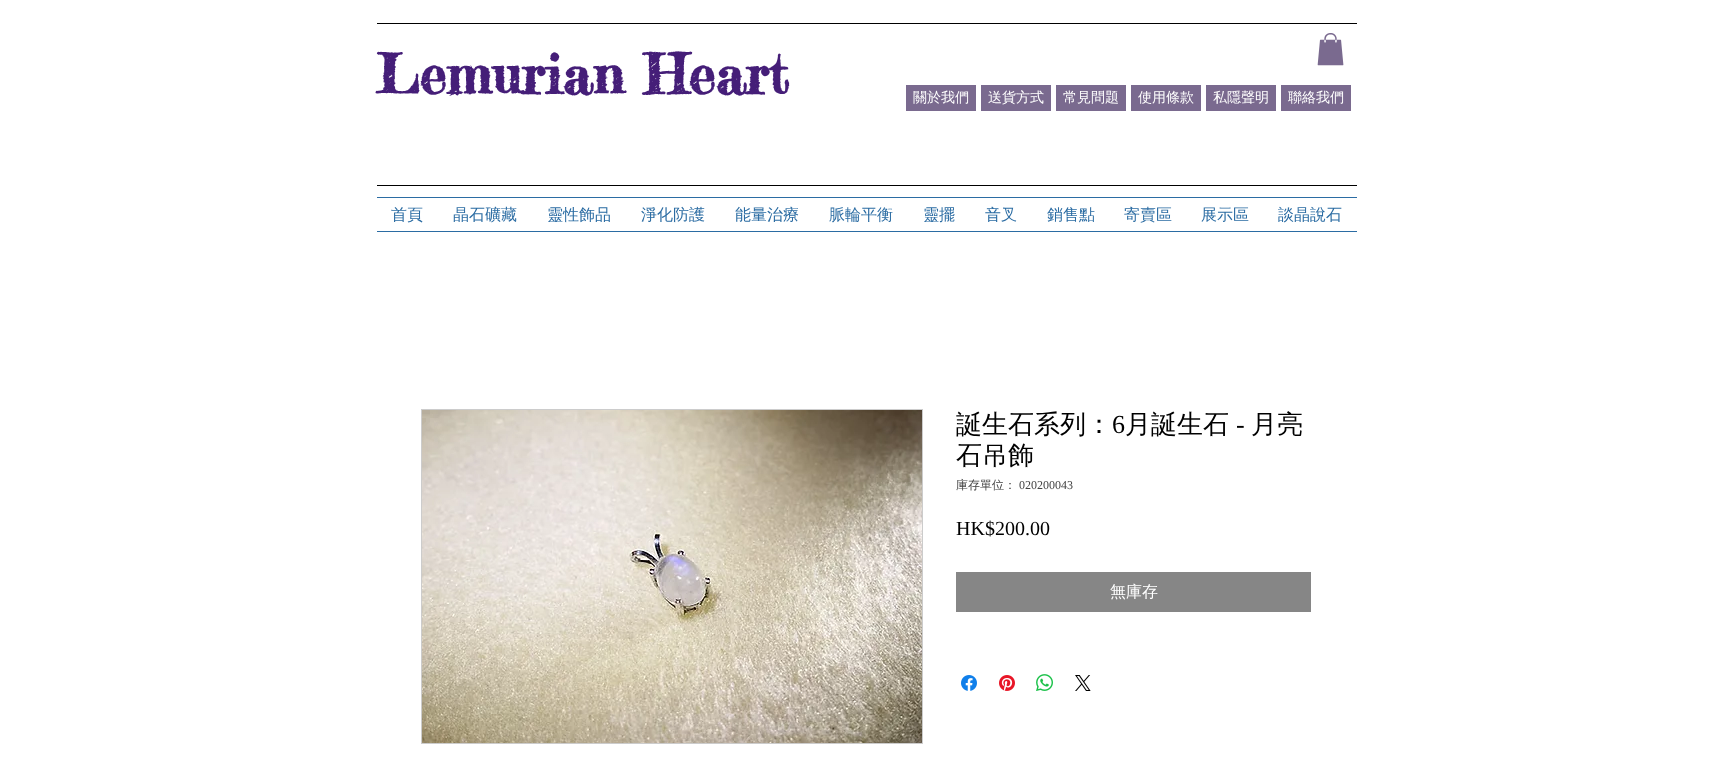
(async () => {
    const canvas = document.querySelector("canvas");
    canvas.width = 1732;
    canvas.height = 765;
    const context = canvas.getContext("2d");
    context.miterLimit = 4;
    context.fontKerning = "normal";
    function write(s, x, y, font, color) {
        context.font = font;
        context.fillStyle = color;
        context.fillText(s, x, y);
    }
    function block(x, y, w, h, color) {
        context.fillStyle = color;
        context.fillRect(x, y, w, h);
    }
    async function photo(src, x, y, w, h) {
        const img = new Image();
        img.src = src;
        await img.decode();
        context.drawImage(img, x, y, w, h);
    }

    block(0, 0, 1732, 765, "rgb(255, 255, 255)");
    block(377, 23, 980, 1, "rgb(0, 0, 0)");
    write("Lemurian Heart", 376, 94, "bold 54px Fredericka the Great", "rgb(69, 30, 120)");
    block(906, 85, 70, 26, "rgb(122, 106, 143)");
    write("關於我們", 913, 102, "500 14px WenQuanYi Zen Hei", "rgb(255, 255, 255)");
    block(981, 85, 70, 26, "rgb(122, 106, 143)");
    write("送貨方式", 988, 102, "500 14px WenQuanYi Zen Hei", "rgb(255, 255, 255)");
    block(1056, 85, 70, 26, "rgb(122, 106, 143)");
    write("常見問題", 1063, 102, "500 14px WenQuanYi Zen Hei", "rgb(255, 255, 255)");
    block(1131, 85, 70, 26, "rgb(122, 106, 143)");
    write("使用條款", 1138, 102, "500 14px WenQuanYi Zen Hei", "rgb(255, 255, 255)");
    block(1206, 85, 70, 26, "rgb(122, 106, 143)");
    write("私隱聲明", 1213, 102, "500 14px WenQuanYi Zen Hei", "rgb(255, 255, 255)");
    await photo("media/1.png", 1317, 33, 27, 33);
    block(1281, 85, 70, 26, "rgb(122, 106, 143)");
    write("聯絡我們", 1288, 102, "500 14px WenQuanYi Zen Hei", "rgb(255, 255, 255)");
    block(377, 185, 980, 1, "rgb(0, 0, 0)");
    block(377, 197, 980, 1, "rgb(43, 108, 163)");
    block(377, 231, 980, 1, "rgb(43, 108, 163)");
    write("首頁", 391, 220, "500 16px WenQuanYi Zen Hei", "rgb(43, 108, 163)");
    write("晶石礦藏", 453, 220, "500 16px WenQuanYi Zen Hei", "rgb(43, 108, 163)");
    write("靈性飾品", 547, 220, "500 16px WenQuanYi Zen Hei", "rgb(43, 108, 163)");
    write("淨化防護", 641, 220, "500 16px WenQuanYi Zen Hei", "rgb(43, 108, 163)");
    write("能量治療", 735, 220, "500 16px WenQuanYi Zen Hei", "rgb(43, 108, 163)");
    write("脈輪平衡", 829, 220, "500 16px WenQuanYi Zen Hei", "rgb(43, 108, 163)");
    write("靈擺", 923, 220, "500 16px WenQuanYi Zen Hei", "rgb(43, 108, 163)");
    write("音叉", 985, 220, "500 16px WenQuanYi Zen Hei", "rgb(43, 108, 163)");
    write("銷售點", 1047, 220, "500 16px WenQuanYi Zen Hei", "rgb(43, 108, 163)");
    write("寄賣區", 1124, 220, "500 16px WenQuanYi Zen Hei", "rgb(43, 108, 163)");
    write("展示區", 1201, 220, "500 16px WenQuanYi Zen Hei", "rgb(43, 108, 163)");
    write("談晶說石", 1278, 220, "500 16px WenQuanYi Zen Hei", "rgb(43, 108, 163)");
    context.strokeStyle = "rgb(204, 204, 204)";
    context.strokeRect(421.5, 409.5, 501, 334);
    await photo("media/2.png", 422, 410, 500, 333);
    write("誕生石系列：", 956, 433, "500 26px WenQuanYi Zen Hei", "rgb(0, 0, 0)");
    write("6", 1112, 433, "26px Liberation Serif", "rgb(0, 0, 0)");
    write("月誕生石", 1125, 433, "500 26px WenQuanYi Zen Hei", "rgb(0, 0, 0)");
    write("-", 1236, 433, "26px Liberation Serif", "rgb(0, 0, 0)");
    write("月亮", 1251, 433, "500 26px WenQuanYi Zen Hei", "rgb(0, 0, 0)");
    write("石吊飾", 956, 464, "500 26px WenQuanYi Zen Hei", "rgb(0, 0, 0)");
    write("庫存單位：", 956, 489, "500 12px WenQuanYi Zen Hei", "rgb(66, 66, 66)");
    write("020200043", 1019, 489, "12px Liberation Serif", "rgb(66, 66, 66)");
    write("HK$200.00", 956, 535, "20px Liberation Serif", "rgb(0, 0, 0)");
    block(956, 572, 355, 40, "rgb(134, 134, 134)");
    write("無庫存", 1110, 597, "500 16px WenQuanYi Zen Hei", "rgb(255, 255, 255)");
    await photo("media/3.png", 961, 675, 16, 16);
    await photo("media/4.png", 999, 675, 16, 16);
    await photo("media/5.png", 1036, 674, 17, 17);
    await photo("media/6.png", 1075, 675, 16, 16);
})();
